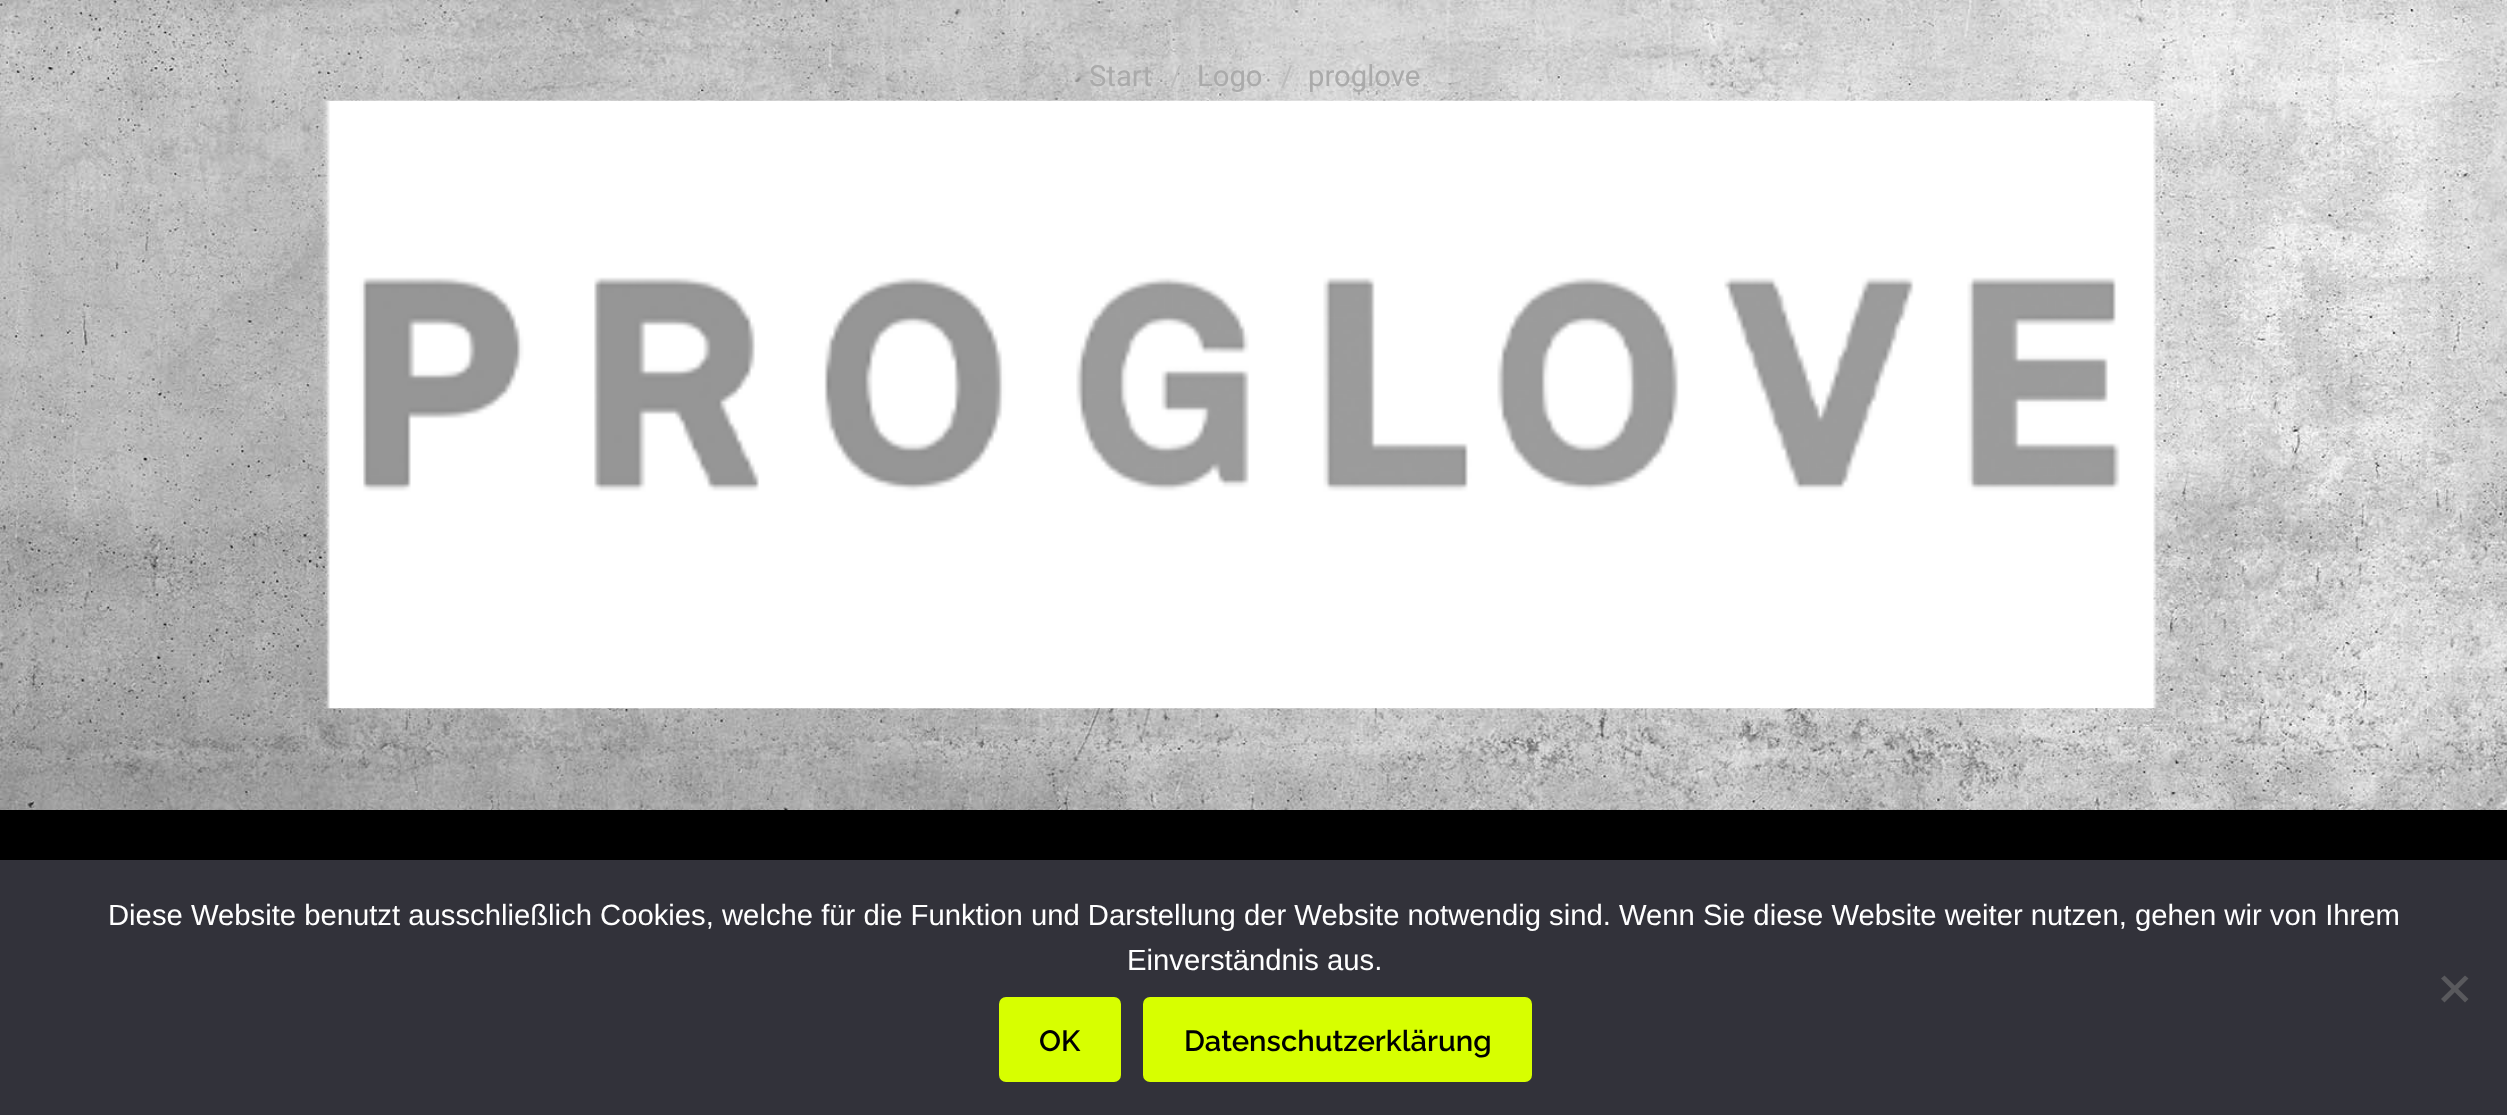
(async () => {
    const canvas = document.querySelector("canvas");
    canvas.width = 2507;
    canvas.height = 1115;
    const context = canvas.getContext("2d");
    context.miterLimit = 4;
    context.fontKerning = "normal";
    function write(s, x, y, font, color) {
        context.font = font;
        context.fillStyle = color;
        context.fillText(s, x, y);
    }
    function block(x, y, w, h, color) {
        context.fillStyle = color;
        context.fillRect(x, y, w, h);
    }
    function card(x, y, w, h, r, color) {
        context.fillStyle = color;
        context.beginPath();
        context.roundRect(x, y, w, h, r);
        context.fill();
    }
    async function photo(src, x, y, w, h) {
        const img = new Image();
        img.src = src;
        await img.decode();
        context.drawImage(img, x, y, w, h);
    }

    block(0, 0, 2507, 1115, "rgb(255, 255, 255)");
    await photo("media/1.png", 0, 0, 2507, 810);
    write("Start", 1089, 86, "29.25px Roboto", "rgb(170, 170, 170)");
    write("/", 1170, 86, "29.25px Roboto", "rgb(188, 188, 188)");
    write("Logo", 1197, 86, "29.25px Roboto", "rgb(170, 170, 170)");
    write("/", 1281, 86, "29.25px Roboto", "rgb(188, 188, 188)");
    write("proglove", 1308, 86, "29.25px Roboto", "rgb(170, 170, 170)");
    await photo("media/2.png", 323, 100, 1834, 609);
    block(0, 810, 2507, 50, "rgb(0, 0, 0)");
    block(0, 860, 2507, 255, "rgb(50, 50, 58)");
    write("Diese Website benutzt ausschließlich Cookies, welche für die Funktion und Darstellung der Website notwendig sind. Wenn Sie diese Website weiter nutzen, gehen wir von Ihrem", 108, 925, "29.25px Liberation Sans", "rgb(255, 255, 255)");
    write("Einverständnis aus.", 1127, 970, "29.25px Liberation Sans", "rgb(255, 255, 255)");
    context.fillStyle = "rgb(89, 89, 93)";
    context.beginPath();
    context.moveTo(2465, 975.5);
    context.lineTo(2468.5, 978.5);
    context.lineTo(2444.5, 1002.5);
    context.lineTo(2441, 999);
    context.closePath();
    context.fill();
    context.beginPath();
    context.moveTo(2441, 978.5);
    context.lineTo(2444.5, 975.5);
    context.lineTo(2468.5, 999);
    context.lineTo(2465, 1002.5);
    context.closePath();
    context.fill();
    card(999, 997, 122, 85, 7, "rgb(215, 255, 0)");
    write("OK", 1039, 1051, "600 29.25px Raleway", "rgb(0, 0, 0)");
    card(1143, 997, 389, 85, 7, "rgb(215, 255, 0)");
    write("Datenschutzerklärung", 1184, 1051, "600 29.25px Raleway", "rgb(0, 0, 0)");
})();
